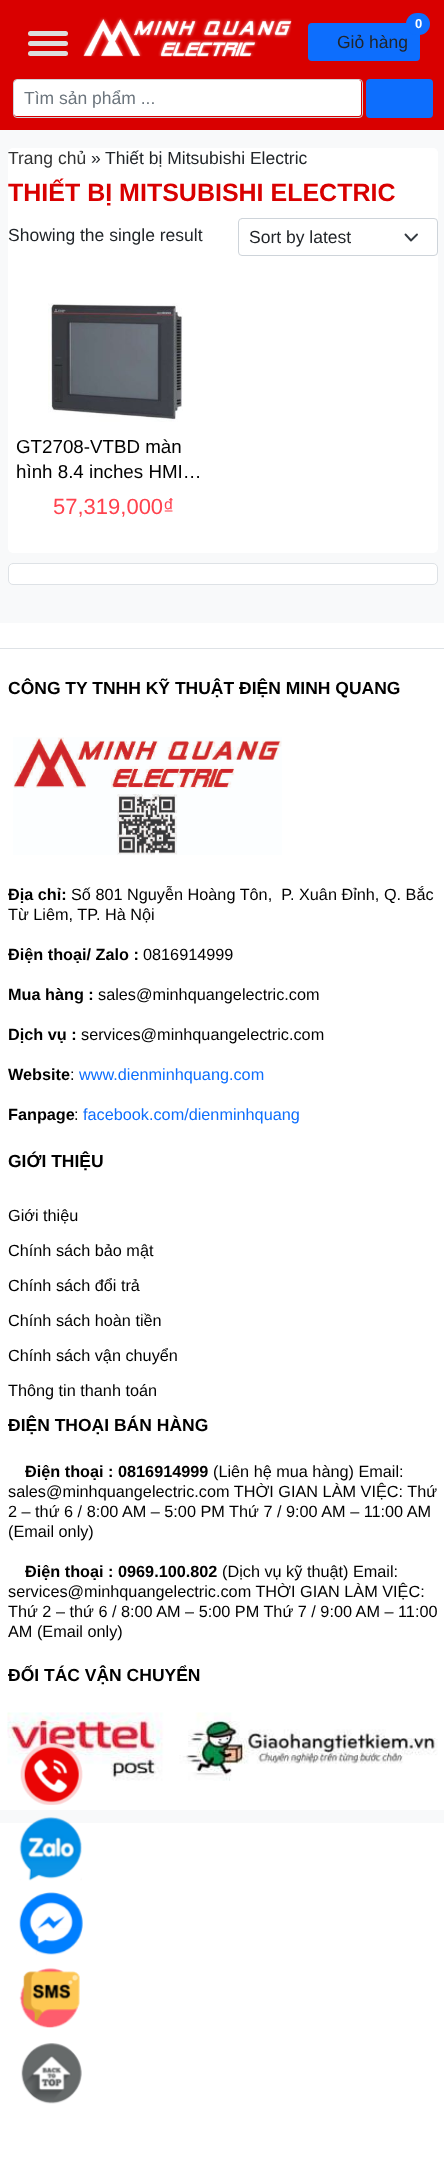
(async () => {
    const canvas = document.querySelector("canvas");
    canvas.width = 444;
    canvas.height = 2169;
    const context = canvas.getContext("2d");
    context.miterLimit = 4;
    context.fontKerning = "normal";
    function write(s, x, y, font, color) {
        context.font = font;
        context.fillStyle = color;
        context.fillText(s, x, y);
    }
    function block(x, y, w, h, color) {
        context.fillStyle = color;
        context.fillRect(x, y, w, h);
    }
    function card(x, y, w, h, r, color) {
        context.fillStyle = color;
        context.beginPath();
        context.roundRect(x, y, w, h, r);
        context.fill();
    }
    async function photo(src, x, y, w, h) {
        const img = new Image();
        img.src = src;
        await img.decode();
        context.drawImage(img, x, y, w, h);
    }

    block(0, 0, 444, 2169, "rgb(255, 255, 255)");
    block(0, 0, 444, 130, "rgb(217, 0, 0)");
    card(28, 31, 40, 5, 2.5, "rgb(221, 221, 221)");
    card(28, 41, 40, 5, 2.5, "rgb(221, 221, 221)");
    card(28, 51, 40, 5, 2.5, "rgb(221, 221, 221)");
    await photo("media/1.png", 83, 17, 209, 40);
    card(308, 23, 112, 38, 4, "rgb(13, 110, 253)");
    write("Giỏ hàng", 337, 48, "17.5px Liberation Sans", "rgb(33, 37, 41)");
    card(406, 13, 24, 22, 11, "rgb(13, 110, 253)");
    write("0", 415, 28, "bold 13px Liberation Sans", "rgb(255, 255, 255)");
    card(14, 80, 347, 36, 2.5, "rgb(255, 255, 255)");
    context.beginPath();
    context.roundRect(13.5, 79.5, 349, 38, 3.5);
    context.strokeStyle = "rgb(206, 212, 218)";
    context.stroke();
    write("Tìm sản phẩm ...", 24, 104, "17.5px Liberation Sans", "rgb(108, 117, 125)");
    card(366, 79, 67, 39, 4, "rgb(13, 110, 253)");
    block(0, 130, 444, 493, "rgb(248, 249, 250)");
    card(8, 148, 430, 405, 5, "rgb(255, 255, 255)");
    write("Trang chủ", 8, 164, "17.5px Liberation Sans", "rgb(51, 51, 51)");
    write("»", 91, 164, "17.5px Liberation Sans", "rgb(33, 37, 41)");
    write("Thiết bị Mitsubishi Electric", 105, 164, "17.5px Liberation Sans", "rgb(33, 37, 41)");
    write("THIẾT BỊ MITSUBISHI ELECTRIC", 8, 201, "bold 25px Liberation Sans", "rgb(217, 0, 0)");
    write("Showing the single result", 8, 241, "17.5px Liberation Sans", "rgb(33, 37, 41)");
    context.beginPath();
    context.moveTo(405.5, 234.5);
    context.lineTo(411, 240.5);
    context.lineTo(417, 234.5);
    context.strokeStyle = "rgb(52, 58, 64)";
    context.lineWidth = 1.9;
    context.lineCap = "round";
    context.lineJoin = "round";
    context.stroke();
    context.beginPath();
    context.roundRect(238.5, 218.5, 199, 37, 3.5);
    context.strokeStyle = "rgb(206, 212, 218)";
    context.lineWidth = 1;
    context.lineJoin = "miter";
    context.stroke();
    write("Sort by latest", 249, 243, "17.5px Liberation Sans", "rgb(33, 37, 41)");
    await photo("media/2.png", 48, 303, 135, 119);
    write("GT2708-VTBD màn", 16, 453, "18.75px Liberation Sans", "rgb(0, 0, 0)");
    write("hình 8.4 inches HMI…", 16, 478, "18.75px Liberation Sans", "rgb(0, 0, 0)");
    write("57,319,000₫", 53, 514, "22px Liberation Sans", "rgb(255, 66, 78)");
    context.fillStyle = "rgb(255, 255, 255)";
    context.beginPath();
    context.roundRect(8.5, 563.5, 429, 21, 4.5);
    context.fill();
    context.strokeStyle = "rgb(222, 226, 230)";
    context.stroke();
    block(0, 648, 444, 1, "rgb(222, 226, 230)");
    write("CÔNG TY TNHH KỸ THUẬT ĐIỆN MINH QUANG", 8, 694, "bold 17.5px Liberation Sans", "rgb(0, 0, 0)");
    await photo("media/3.png", 13, 737, 269, 118);
    write("Địa chỉ:", 8, 900, "bold 16.25px Liberation Sans", "rgb(0, 0, 0)");
    write("Số 801 Nguyễn Hoàng Tôn,  P. Xuân Đỉnh, Q. Bắc", 71, 900, "16.25px Liberation Sans", "rgb(0, 0, 0)");
    write("Từ Liêm, TP. Hà Nội", 8, 920, "16.25px Liberation Sans", "rgb(0, 0, 0)");
    write("Điện thoại/ Zalo :", 8, 960, "bold 16.25px Liberation Sans", "rgb(0, 0, 0)");
    write("0816914999", 143, 960, "16.25px Liberation Sans", "rgb(0, 0, 0)");
    write("Mua hàng :", 8, 1000, "bold 16.25px Liberation Sans", "rgb(0, 0, 0)");
    write("sales@minhquangelectric.com", 98, 1000, "16.25px Liberation Sans", "rgb(0, 0, 0)");
    write("Dịch vụ :", 8, 1040, "bold 16.25px Liberation Sans", "rgb(0, 0, 0)");
    write("services@minhquangelectric.com", 81, 1040, "16.25px Liberation Sans", "rgb(0, 0, 0)");
    write("Website", 8, 1080, "bold 16.25px Liberation Sans", "rgb(0, 0, 0)");
    write(":", 70, 1080, "16.25px Liberation Sans", "rgb(0, 0, 0)");
    write("www.dienminhquang.com", 79, 1080, "16.25px Liberation Sans", "rgb(13, 110, 253)");
    write("Fanpage", 8, 1120, "bold 16.25px Liberation Sans", "rgb(0, 0, 0)");
    write(":", 74, 1120, "16.25px Liberation Sans", "rgb(0, 0, 0)");
    write("facebook.com/dienminhquang", 83, 1120, "16.25px Liberation Sans", "rgb(13, 110, 253)");
    write("GIỚI THIỆU", 8, 1167, "bold 17.5px Liberation Sans", "rgb(0, 0, 0)");
    write("Giới thiệu", 8, 1221, "16.25px Liberation Sans", "rgb(0, 0, 0)");
    write("Chính sách bảo mật", 8, 1256, "16.25px Liberation Sans", "rgb(0, 0, 0)");
    write("Chính sách đổi trả", 8, 1291, "16.25px Liberation Sans", "rgb(0, 0, 0)");
    write("Chính sách hoàn tiền", 8, 1326, "16.25px Liberation Sans", "rgb(0, 0, 0)");
    write("Chính sách vận chuyển", 8, 1361, "16.25px Liberation Sans", "rgb(0, 0, 0)");
    write("Thông tin thanh toán", 8, 1396, "16.25px Liberation Sans", "rgb(0, 0, 0)");
    write("ĐIỆN THOẠI BÁN HÀNG", 8, 1431, "bold 17.5px Liberation Sans", "rgb(0, 0, 0)");
    write("Điện thoại : 0816914999", 25, 1477, "bold 16.25px Liberation Sans", "rgb(0, 0, 0)");
    write("(Liên hệ mua hàng) Email:", 213, 1477, "16.25px Liberation Sans", "rgb(0, 0, 0)");
    write("sales@minhquangelectric.com THỜI GIAN LÀM VIỆC: Thứ", 8, 1497, "16.25px Liberation Sans", "rgb(0, 0, 0)");
    write("2 – thứ 6 / 8:00 AM – 5:00 PM Thứ 7 / 9:00 AM – 11:00 AM", 8, 1517, "16.25px Liberation Sans", "rgb(0, 0, 0)");
    write("(Email only)", 8, 1537, "16.25px Liberation Sans", "rgb(0, 0, 0)");
    write("Điện thoại : 0969.100.802", 25, 1577, "bold 16.25px Liberation Sans", "rgb(0, 0, 0)");
    write("(Dịch vụ kỹ thuật) Email:", 222, 1577, "16.25px Liberation Sans", "rgb(0, 0, 0)");
    write("services@minhquangelectric.com THỜI GIAN LÀM VIỆC:", 8, 1597, "16.25px Liberation Sans", "rgb(0, 0, 0)");
    write("Thứ 2 – thứ 6 / 8:00 AM – 5:00 PM Thứ 7 / 9:00 AM – 11:00", 8, 1617, "16.25px Liberation Sans", "rgb(0, 0, 0)");
    write("AM (Email only)", 8, 1637, "16.25px Liberation Sans", "rgb(0, 0, 0)");
    write("ĐỐI TÁC VẬN CHUYỂN", 8, 1681, "bold 17.5px Liberation Sans", "rgb(0, 0, 0)");
    await photo("media/4.png", 7, 1712, 431, 69);
    await photo("media/5.png", 20, 1743, 63, 62);
    block(0, 1810, 444, 13, "rgb(248, 249, 250)");
    await photo("media/6.png", 19, 1817, 63, 64);
    await photo("media/7.png", 19, 1892, 64, 63);
    await photo("media/8.png", 19, 1968, 61, 60);
    await photo("media/9.png", 21, 2043, 61, 61);
})();
